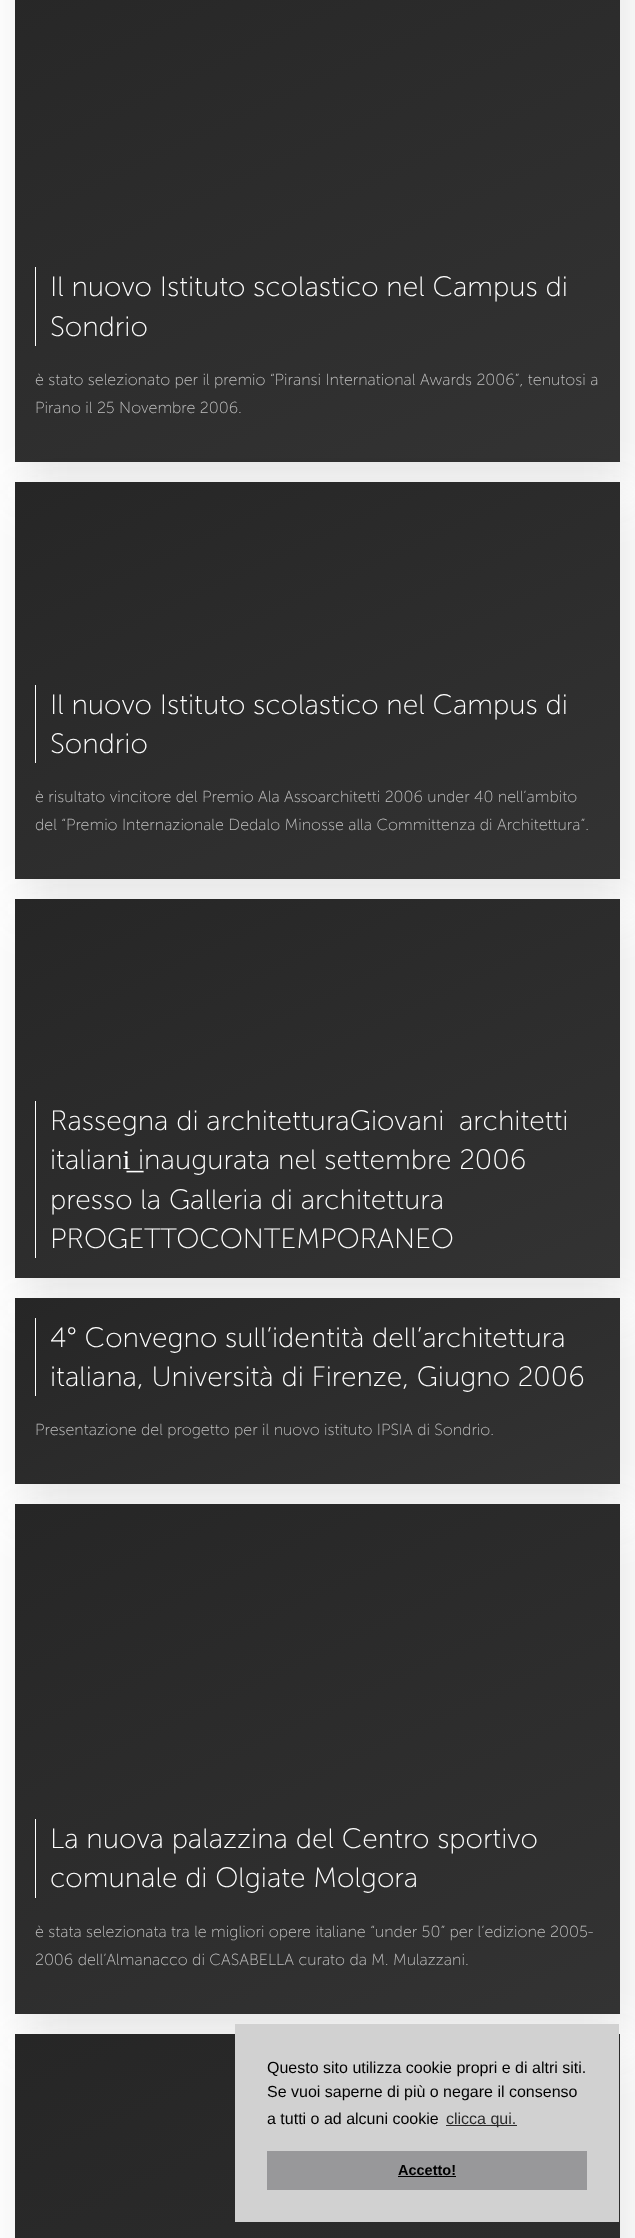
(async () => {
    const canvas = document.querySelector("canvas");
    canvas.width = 635;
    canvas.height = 2238;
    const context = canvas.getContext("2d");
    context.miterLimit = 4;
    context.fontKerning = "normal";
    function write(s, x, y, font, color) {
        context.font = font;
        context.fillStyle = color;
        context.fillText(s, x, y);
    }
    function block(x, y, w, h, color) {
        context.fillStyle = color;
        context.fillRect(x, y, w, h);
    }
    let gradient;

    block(0, 0, 635, 2238, "rgb(255, 255, 255)");
    context.fillStyle = "rgba(51, 51, 51, 0.12)";
    context.filter = "blur(22.5px)";
    context.beginPath();
    context.rect(23, -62, 605, 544);
    context.fill();
    context.filter = "none";
    gradient = context.createLinearGradient(159, -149, 476, 529);
    gradient.addColorStop(0, "rgb(38, 38, 38)");
    gradient.addColorStop(1, "rgb(51, 51, 51)");
    context.fillStyle = gradient;
    context.fillRect(15, 0, 605, 462);
    block(35, 267, 1, 79, "rgb(255, 255, 255)");
    write("Il nuovo Istituto scolastico nel Campus di", 50, 296, "200 28px Museo Sans", "rgb(255, 255, 255)");
    write("Sondrio", 50, 336, "200 28px Museo Sans", "rgb(255, 255, 255)");
    write("è stato selezionato per il premio “Piransi International Awards 2006”, tenutosi a", 35, 385, "200 16px Museo Sans", "rgb(193, 193, 193)");
    write("Pirano il 25 Novembre 2006.", 35, 413, "200 16px Museo Sans", "rgb(193, 193, 193)");
    context.fillStyle = "rgba(51, 51, 51, 0.12)";
    context.filter = "blur(22.5px)";
    context.beginPath();
    context.rect(23, 502, 605, 397);
    context.fill();
    context.filter = "none";
    gradient = context.createLinearGradient(187, 402, 448, 959);
    gradient.addColorStop(0, "rgb(38, 38, 38)");
    gradient.addColorStop(1, "rgb(51, 51, 51)");
    context.fillStyle = gradient;
    context.fillRect(15, 482, 605, 397);
    block(35, 685, 1, 78, "rgb(255, 255, 255)");
    write("Il nuovo Istituto scolastico nel Campus di", 50, 714, "200 28px Museo Sans", "rgb(255, 255, 255)");
    write("Sondrio", 50, 753, "200 28px Museo Sans", "rgb(255, 255, 255)");
    write("è risultato vincitore del Premio Ala Assoarchitetti 2006 under 40 nell’ambito", 35, 802, "200 16px Museo Sans", "rgb(193, 193, 193)");
    write("del “Premio Internazionale Dedalo Minosse alla Committenza di Architettura”.", 35, 830, "200 16px Museo Sans", "rgb(193, 193, 193)");
    context.fillStyle = "rgba(51, 51, 51, 0.12)";
    context.filter = "blur(22.5px)";
    context.beginPath();
    context.rect(23, 919, 605, 379);
    context.fill();
    context.filter = "none";
    gradient = context.createLinearGradient(191, 817, 444, 1360);
    gradient.addColorStop(0, "rgb(38, 38, 38)");
    gradient.addColorStop(1, "rgb(51, 51, 51)");
    context.fillStyle = gradient;
    context.fillRect(15, 899, 605, 379);
    block(35, 1101, 1, 157, "rgb(255, 255, 255)");
    write("Rassegna di architetturaGiovani", 50, 1130, "200 28px Museo Sans", "rgb(255, 255, 255)");
    write("architetti", 459, 1130, "200 28px Museo Sans", "rgb(255, 255, 255)");
    write("italiani͟", 50, 1169, "200 28px Museo Sans", "rgb(255, 255, 255)");
    write("inaugurata nel settembre 2006", 138, 1169, "200 28px Museo Sans", "rgb(255, 255, 255)");
    write("presso la Galleria di architettura", 50, 1209, "200 28px Museo Sans", "rgb(255, 255, 255)");
    write("PROGETTOCONTEMPORANEO", 50, 1248, "200 28px Museo Sans", "rgb(255, 255, 255)");
    context.fillStyle = "rgba(51, 51, 51, 0.12)";
    context.filter = "blur(22.5px)";
    context.beginPath();
    context.rect(23, 1318, 605, 186);
    context.fill();
    context.filter = "none";
    gradient = context.createLinearGradient(228, 1199, 407, 1583);
    gradient.addColorStop(0, "rgb(38, 38, 38)");
    gradient.addColorStop(1, "rgb(51, 51, 51)");
    context.fillStyle = gradient;
    context.fillRect(15, 1298, 605, 186);
    block(35, 1318, 1, 78, "rgb(255, 255, 255)");
    write("4° Convegno sull’identità dell’architettura", 50, 1347, "200 28px Museo Sans", "rgb(255, 255, 255)");
    write("italiana, Università di Firenze, Giugno 2006", 50, 1386, "200 28px Museo Sans", "rgb(255, 255, 255)");
    write("Presentazione del progetto per il nuovo istituto IPSIA di Sondrio.", 35, 1435, "200 16px Museo Sans", "rgb(193, 193, 193)");
    context.fillStyle = "rgba(51, 51, 51, 0.12)";
    context.filter = "blur(22.5px)";
    context.beginPath();
    context.rect(23, 1524, 605, 510);
    context.fill();
    context.filter = "none";
    gradient = context.createLinearGradient(166, 1434, 469, 2084);
    gradient.addColorStop(0, "rgb(38, 38, 38)");
    gradient.addColorStop(1, "rgb(51, 51, 51)");
    context.fillStyle = gradient;
    context.fillRect(15, 1504, 605, 510);
    block(35, 1819, 1, 79, "rgb(255, 255, 255)");
    write("La nuova palazzina del Centro sportivo", 50, 1848, "200 28px Museo Sans", "rgb(255, 255, 255)");
    write("comunale di Olgiate Molgora", 50, 1887, "200 28px Museo Sans", "rgb(255, 255, 255)");
    write("è stata selezionata tra le migliori opere italiane “under 50” per l’edizione 2005-", 35, 1937, "200 16px Museo Sans", "rgb(193, 193, 193)");
    write("2006 dell’Almanacco di CASABELLA curato da M. Mulazzani.", 35, 1965, "200 16px Museo Sans", "rgb(193, 193, 193)");
    context.fillStyle = "rgba(51, 51, 51, 0.12)";
    context.filter = "blur(22.5px)";
    context.beginPath();
    context.rect(23, 2054, 605, 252);
    context.fill();
    context.filter = "none";
    gradient = context.createLinearGradient(134, 1978, 501, 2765);
    gradient.addColorStop(0, "rgb(38, 38, 38)");
    gradient.addColorStop(1, "rgb(51, 51, 51)");
    context.fillStyle = gradient;
    context.fillRect(15, 2034, 605, 204);
    block(235, 2024, 384, 198, "rgb(209, 209, 209)");
    write("Questo sito utilizza cookie propri e di altri siti.", 267, 2073, "16px Liberation Sans", "rgb(0, 0, 0)");
    write("Se vuoi saperne di più o negare il consenso", 267, 2097, "16px Liberation Sans", "rgb(0, 0, 0)");
    write("a tutti o ad alcuni cookie", 267, 2124, "16px Liberation Sans", "rgb(0, 0, 0)");
    block(446, 2125, 71, 1, "rgb(42, 42, 42)");
    write("clicca qui.", 446, 2124, "16px Liberation Sans", "rgb(42, 42, 42)");
    block(267, 2151, 320, 39, "rgb(152, 152, 154)");
    write("Accetto!", 398, 2175, "bold 14.5px Liberation Sans", "rgb(0, 0, 0)");
    block(398, 2176, 58, 1, "rgb(0, 0, 0)");
})();
